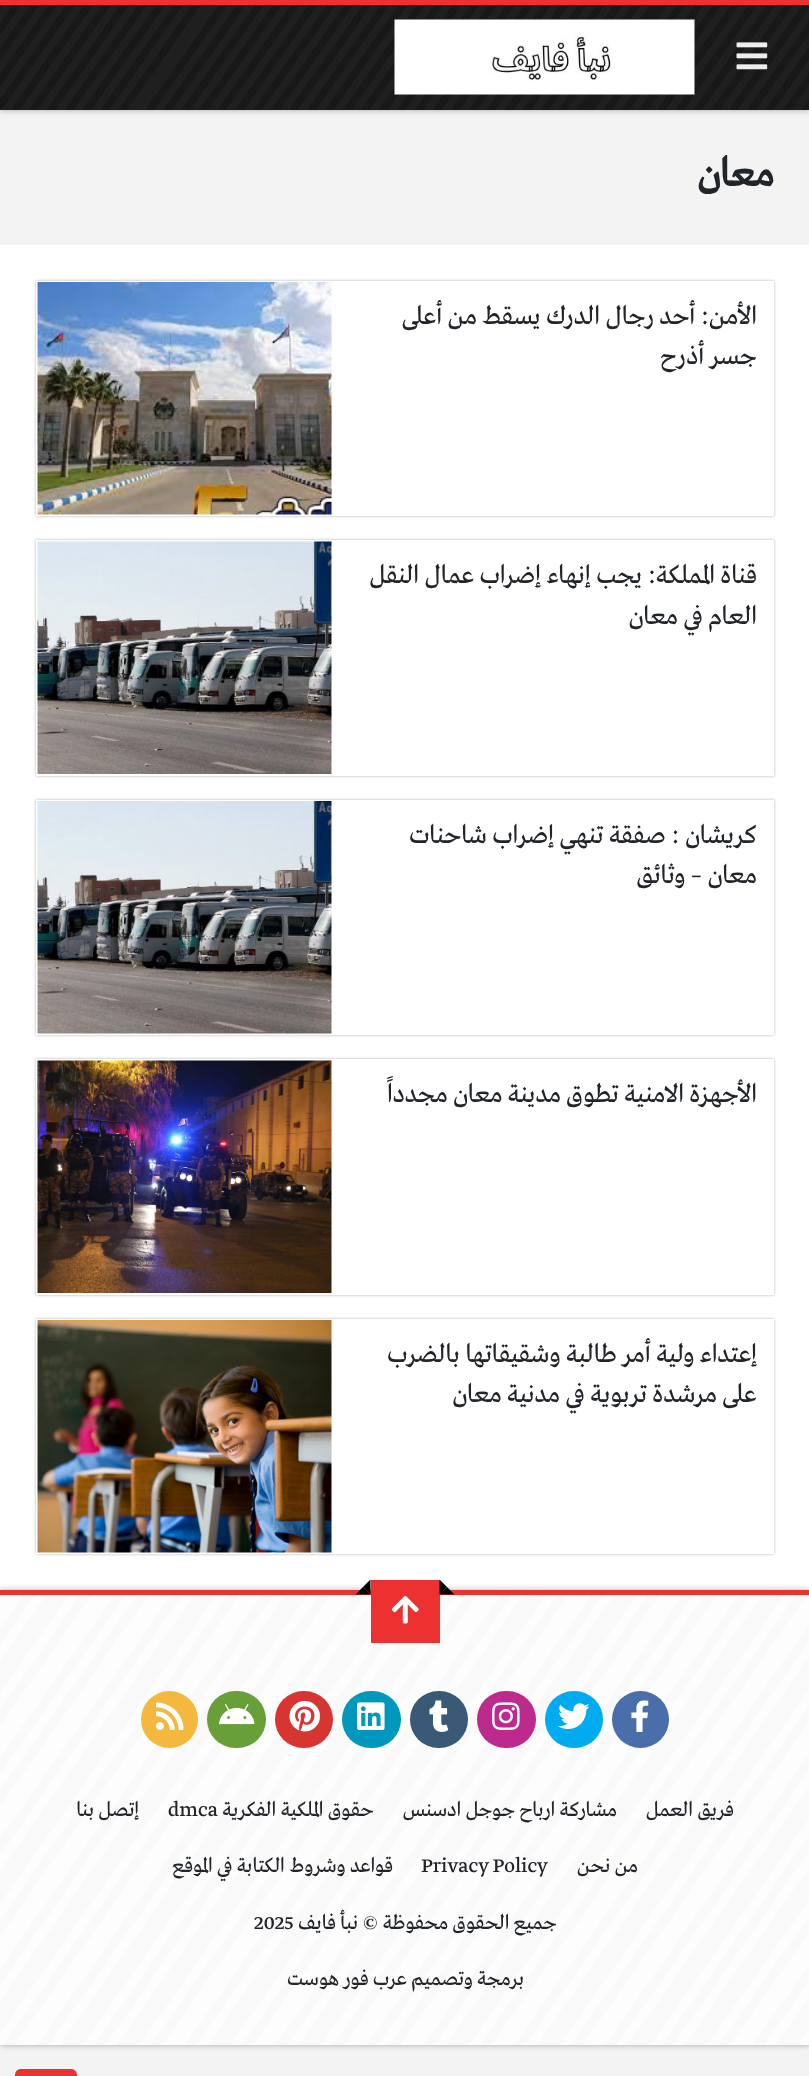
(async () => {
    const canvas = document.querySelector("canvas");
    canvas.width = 809;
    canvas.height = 2076;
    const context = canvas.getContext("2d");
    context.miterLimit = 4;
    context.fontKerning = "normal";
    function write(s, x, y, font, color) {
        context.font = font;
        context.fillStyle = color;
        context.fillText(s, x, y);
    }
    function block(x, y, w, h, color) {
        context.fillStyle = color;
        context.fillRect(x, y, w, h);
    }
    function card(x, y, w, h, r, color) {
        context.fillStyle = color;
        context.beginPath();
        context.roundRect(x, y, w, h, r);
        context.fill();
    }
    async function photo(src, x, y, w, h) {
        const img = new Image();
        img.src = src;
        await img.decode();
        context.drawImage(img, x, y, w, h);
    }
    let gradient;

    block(0, 0, 809, 2076, "rgb(243, 243, 243)");
    context.fillStyle = "rgba(0, 0, 0, 0.3)";
    context.filter = "blur(3px)";
    context.beginPath();
    context.rect(0, 0, 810, 110);
    context.fill();
    context.filter = "none";
    block(0, 0, 809, 5, "rgb(237, 49, 49)");
    gradient = context.createLinearGradient(701, 265, 99, -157);
    gradient.addColorStop(0, "rgb(24, 24, 24)");
    gradient.addColorStop(0.01, "rgb(24, 24, 24)");
    gradient.addColorStop(0.01, "rgb(31, 31, 31)");
    gradient.addColorStop(0.02, "rgb(31, 31, 31)");
    gradient.addColorStop(0.02, "rgb(24, 24, 24)");
    gradient.addColorStop(0.03, "rgb(24, 24, 24)");
    gradient.addColorStop(0.03, "rgb(31, 31, 31)");
    gradient.addColorStop(0.04, "rgb(31, 31, 31)");
    gradient.addColorStop(0.04, "rgb(24, 24, 24)");
    gradient.addColorStop(0.05, "rgb(24, 24, 24)");
    gradient.addColorStop(0.05, "rgb(31, 31, 31)");
    gradient.addColorStop(0.06, "rgb(31, 31, 31)");
    gradient.addColorStop(0.06, "rgb(24, 24, 24)");
    gradient.addColorStop(0.07, "rgb(24, 24, 24)");
    gradient.addColorStop(0.07, "rgb(31, 31, 31)");
    gradient.addColorStop(0.08, "rgb(31, 31, 31)");
    gradient.addColorStop(0.08, "rgb(24, 24, 24)");
    gradient.addColorStop(0.09, "rgb(24, 24, 24)");
    gradient.addColorStop(0.09, "rgb(31, 31, 31)");
    gradient.addColorStop(0.1, "rgb(31, 31, 31)");
    gradient.addColorStop(0.1, "rgb(24, 24, 24)");
    gradient.addColorStop(0.11, "rgb(24, 24, 24)");
    gradient.addColorStop(0.11, "rgb(31, 31, 31)");
    gradient.addColorStop(0.12, "rgb(31, 31, 31)");
    gradient.addColorStop(0.12, "rgb(24, 24, 24)");
    gradient.addColorStop(0.13, "rgb(24, 24, 24)");
    gradient.addColorStop(0.13, "rgb(31, 31, 31)");
    gradient.addColorStop(0.14, "rgb(31, 31, 31)");
    gradient.addColorStop(0.14, "rgb(24, 24, 24)");
    gradient.addColorStop(0.15, "rgb(24, 24, 24)");
    gradient.addColorStop(0.15, "rgb(31, 31, 31)");
    gradient.addColorStop(0.16, "rgb(31, 31, 31)");
    gradient.addColorStop(0.16, "rgb(24, 24, 24)");
    gradient.addColorStop(0.17, "rgb(24, 24, 24)");
    gradient.addColorStop(0.17, "rgb(31, 31, 31)");
    gradient.addColorStop(0.18, "rgb(31, 31, 31)");
    gradient.addColorStop(0.18, "rgb(24, 24, 24)");
    gradient.addColorStop(0.19, "rgb(24, 24, 24)");
    gradient.addColorStop(0.19, "rgb(31, 31, 31)");
    gradient.addColorStop(0.2, "rgb(31, 31, 31)");
    gradient.addColorStop(0.2, "rgb(24, 24, 24)");
    gradient.addColorStop(0.21, "rgb(24, 24, 24)");
    gradient.addColorStop(0.21, "rgb(31, 31, 31)");
    gradient.addColorStop(0.22, "rgb(31, 31, 31)");
    gradient.addColorStop(0.22, "rgb(24, 24, 24)");
    gradient.addColorStop(0.23, "rgb(24, 24, 24)");
    gradient.addColorStop(0.23, "rgb(31, 31, 31)");
    gradient.addColorStop(0.24, "rgb(31, 31, 31)");
    gradient.addColorStop(0.24, "rgb(24, 24, 24)");
    gradient.addColorStop(0.26, "rgb(24, 24, 24)");
    gradient.addColorStop(0.26, "rgb(31, 31, 31)");
    gradient.addColorStop(0.27, "rgb(31, 31, 31)");
    gradient.addColorStop(0.27, "rgb(24, 24, 24)");
    gradient.addColorStop(0.28, "rgb(24, 24, 24)");
    gradient.addColorStop(0.28, "rgb(31, 31, 31)");
    gradient.addColorStop(0.29, "rgb(31, 31, 31)");
    gradient.addColorStop(0.29, "rgb(24, 24, 24)");
    gradient.addColorStop(0.3, "rgb(24, 24, 24)");
    gradient.addColorStop(0.3, "rgb(31, 31, 31)");
    gradient.addColorStop(0.31, "rgb(31, 31, 31)");
    gradient.addColorStop(0.31, "rgb(24, 24, 24)");
    gradient.addColorStop(0.32, "rgb(24, 24, 24)");
    gradient.addColorStop(0.32, "rgb(31, 31, 31)");
    gradient.addColorStop(0.33, "rgb(31, 31, 31)");
    gradient.addColorStop(0.33, "rgb(24, 24, 24)");
    gradient.addColorStop(0.34, "rgb(24, 24, 24)");
    gradient.addColorStop(0.34, "rgb(31, 31, 31)");
    gradient.addColorStop(0.35, "rgb(31, 31, 31)");
    gradient.addColorStop(0.35, "rgb(24, 24, 24)");
    gradient.addColorStop(0.36, "rgb(24, 24, 24)");
    gradient.addColorStop(0.36, "rgb(31, 31, 31)");
    gradient.addColorStop(0.37, "rgb(31, 31, 31)");
    gradient.addColorStop(0.37, "rgb(24, 24, 24)");
    gradient.addColorStop(0.38, "rgb(24, 24, 24)");
    gradient.addColorStop(0.38, "rgb(31, 31, 31)");
    gradient.addColorStop(0.39, "rgb(31, 31, 31)");
    gradient.addColorStop(0.39, "rgb(24, 24, 24)");
    gradient.addColorStop(0.4, "rgb(24, 24, 24)");
    gradient.addColorStop(0.4, "rgb(31, 31, 31)");
    gradient.addColorStop(0.41, "rgb(31, 31, 31)");
    gradient.addColorStop(0.41, "rgb(24, 24, 24)");
    gradient.addColorStop(0.42, "rgb(24, 24, 24)");
    gradient.addColorStop(0.42, "rgb(31, 31, 31)");
    gradient.addColorStop(0.43, "rgb(31, 31, 31)");
    gradient.addColorStop(0.43, "rgb(24, 24, 24)");
    gradient.addColorStop(0.44, "rgb(24, 24, 24)");
    gradient.addColorStop(0.44, "rgb(31, 31, 31)");
    gradient.addColorStop(0.45, "rgb(31, 31, 31)");
    gradient.addColorStop(0.45, "rgb(24, 24, 24)");
    gradient.addColorStop(0.46, "rgb(24, 24, 24)");
    gradient.addColorStop(0.46, "rgb(31, 31, 31)");
    gradient.addColorStop(0.47, "rgb(31, 31, 31)");
    gradient.addColorStop(0.47, "rgb(24, 24, 24)");
    gradient.addColorStop(0.48, "rgb(24, 24, 24)");
    gradient.addColorStop(0.48, "rgb(31, 31, 31)");
    gradient.addColorStop(0.49, "rgb(31, 31, 31)");
    gradient.addColorStop(0.49, "rgb(24, 24, 24)");
    gradient.addColorStop(0.5, "rgb(24, 24, 24)");
    gradient.addColorStop(0.5, "rgb(31, 31, 31)");
    gradient.addColorStop(0.51, "rgb(31, 31, 31)");
    gradient.addColorStop(0.51, "rgb(24, 24, 24)");
    gradient.addColorStop(0.52, "rgb(24, 24, 24)");
    gradient.addColorStop(0.52, "rgb(31, 31, 31)");
    gradient.addColorStop(0.53, "rgb(31, 31, 31)");
    gradient.addColorStop(0.53, "rgb(24, 24, 24)");
    gradient.addColorStop(0.54, "rgb(24, 24, 24)");
    gradient.addColorStop(0.54, "rgb(31, 31, 31)");
    gradient.addColorStop(0.55, "rgb(31, 31, 31)");
    gradient.addColorStop(0.55, "rgb(24, 24, 24)");
    gradient.addColorStop(0.56, "rgb(24, 24, 24)");
    gradient.addColorStop(0.56, "rgb(31, 31, 31)");
    gradient.addColorStop(0.57, "rgb(31, 31, 31)");
    gradient.addColorStop(0.57, "rgb(24, 24, 24)");
    gradient.addColorStop(0.58, "rgb(24, 24, 24)");
    gradient.addColorStop(0.58, "rgb(31, 31, 31)");
    gradient.addColorStop(0.59, "rgb(31, 31, 31)");
    gradient.addColorStop(0.59, "rgb(24, 24, 24)");
    gradient.addColorStop(0.6, "rgb(24, 24, 24)");
    gradient.addColorStop(0.6, "rgb(31, 31, 31)");
    gradient.addColorStop(0.61, "rgb(31, 31, 31)");
    gradient.addColorStop(0.61, "rgb(24, 24, 24)");
    gradient.addColorStop(0.62, "rgb(24, 24, 24)");
    gradient.addColorStop(0.62, "rgb(31, 31, 31)");
    gradient.addColorStop(0.63, "rgb(31, 31, 31)");
    gradient.addColorStop(0.63, "rgb(24, 24, 24)");
    gradient.addColorStop(0.64, "rgb(24, 24, 24)");
    gradient.addColorStop(0.64, "rgb(31, 31, 31)");
    gradient.addColorStop(0.65, "rgb(31, 31, 31)");
    gradient.addColorStop(0.65, "rgb(24, 24, 24)");
    gradient.addColorStop(0.66, "rgb(24, 24, 24)");
    gradient.addColorStop(0.66, "rgb(31, 31, 31)");
    gradient.addColorStop(0.67, "rgb(31, 31, 31)");
    gradient.addColorStop(0.67, "rgb(24, 24, 24)");
    gradient.addColorStop(0.68, "rgb(24, 24, 24)");
    gradient.addColorStop(0.68, "rgb(31, 31, 31)");
    gradient.addColorStop(0.69, "rgb(31, 31, 31)");
    gradient.addColorStop(0.69, "rgb(24, 24, 24)");
    gradient.addColorStop(0.7, "rgb(24, 24, 24)");
    gradient.addColorStop(0.7, "rgb(31, 31, 31)");
    gradient.addColorStop(0.71, "rgb(31, 31, 31)");
    gradient.addColorStop(0.71, "rgb(24, 24, 24)");
    gradient.addColorStop(0.72, "rgb(24, 24, 24)");
    gradient.addColorStop(0.72, "rgb(31, 31, 31)");
    gradient.addColorStop(0.73, "rgb(31, 31, 31)");
    gradient.addColorStop(0.73, "rgb(24, 24, 24)");
    gradient.addColorStop(0.74, "rgb(24, 24, 24)");
    gradient.addColorStop(0.74, "rgb(31, 31, 31)");
    gradient.addColorStop(0.76, "rgb(31, 31, 31)");
    gradient.addColorStop(0.76, "rgb(24, 24, 24)");
    gradient.addColorStop(0.77, "rgb(24, 24, 24)");
    gradient.addColorStop(0.77, "rgb(31, 31, 31)");
    gradient.addColorStop(0.78, "rgb(31, 31, 31)");
    gradient.addColorStop(0.78, "rgb(24, 24, 24)");
    gradient.addColorStop(0.79, "rgb(24, 24, 24)");
    gradient.addColorStop(0.79, "rgb(31, 31, 31)");
    gradient.addColorStop(0.8, "rgb(31, 31, 31)");
    gradient.addColorStop(0.8, "rgb(24, 24, 24)");
    gradient.addColorStop(0.81, "rgb(24, 24, 24)");
    gradient.addColorStop(0.81, "rgb(31, 31, 31)");
    gradient.addColorStop(0.82, "rgb(31, 31, 31)");
    gradient.addColorStop(0.82, "rgb(24, 24, 24)");
    gradient.addColorStop(0.83, "rgb(24, 24, 24)");
    gradient.addColorStop(0.83, "rgb(31, 31, 31)");
    gradient.addColorStop(0.84, "rgb(31, 31, 31)");
    gradient.addColorStop(0.84, "rgb(24, 24, 24)");
    gradient.addColorStop(0.85, "rgb(24, 24, 24)");
    gradient.addColorStop(0.85, "rgb(31, 31, 31)");
    gradient.addColorStop(0.86, "rgb(31, 31, 31)");
    gradient.addColorStop(0.86, "rgb(24, 24, 24)");
    gradient.addColorStop(0.87, "rgb(24, 24, 24)");
    gradient.addColorStop(0.87, "rgb(31, 31, 31)");
    gradient.addColorStop(0.88, "rgb(31, 31, 31)");
    gradient.addColorStop(0.88, "rgb(24, 24, 24)");
    gradient.addColorStop(0.89, "rgb(24, 24, 24)");
    gradient.addColorStop(0.89, "rgb(31, 31, 31)");
    gradient.addColorStop(0.9, "rgb(31, 31, 31)");
    gradient.addColorStop(0.9, "rgb(24, 24, 24)");
    gradient.addColorStop(0.91, "rgb(24, 24, 24)");
    gradient.addColorStop(0.91, "rgb(31, 31, 31)");
    gradient.addColorStop(0.92, "rgb(31, 31, 31)");
    gradient.addColorStop(0.92, "rgb(24, 24, 24)");
    gradient.addColorStop(0.93, "rgb(24, 24, 24)");
    gradient.addColorStop(0.93, "rgb(31, 31, 31)");
    gradient.addColorStop(0.94, "rgb(31, 31, 31)");
    gradient.addColorStop(0.94, "rgb(24, 24, 24)");
    gradient.addColorStop(0.95, "rgb(24, 24, 24)");
    gradient.addColorStop(0.95, "rgb(31, 31, 31)");
    gradient.addColorStop(0.96, "rgb(31, 31, 31)");
    gradient.addColorStop(0.96, "rgb(24, 24, 24)");
    gradient.addColorStop(0.97, "rgb(24, 24, 24)");
    gradient.addColorStop(0.97, "rgb(31, 31, 31)");
    gradient.addColorStop(0.98, "rgb(31, 31, 31)");
    gradient.addColorStop(0.98, "rgb(24, 24, 24)");
    gradient.addColorStop(0.99, "rgb(24, 24, 24)");
    gradient.addColorStop(0.99, "rgb(31, 31, 31)");
    gradient.addColorStop(1, "rgb(31, 31, 31)");
    context.fillStyle = gradient;
    context.fillRect(0, 5, 809, 105);
    await photo("media/1.png", 736, 42, 32, 28);
    await photo("media/2.png", 394, 19, 301, 76);
    context.direction = "rtl";
    write("معان", 774, 186, "bold 42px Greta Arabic", "rgb(33, 37, 41)");
    block(0, 245, 809, 1345, "rgb(255, 255, 255)");
    context.save();
    context.beginPath();
    context.moveTo(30, 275);
    context.lineTo(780, 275);
    context.lineTo(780, 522);
    context.lineTo(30, 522);
    context.closePath();
    context.moveTo(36, 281);
    context.lineTo(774, 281);
    context.lineTo(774, 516);
    context.lineTo(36, 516);
    context.closePath();
    context.clip("evenodd");
    context.fillStyle = "rgba(0, 0, 0, 0.3)";
    context.filter = "blur(1.5px)";
    context.beginPath();
    context.rect(36, 281, 738, 235);
    context.fill();
    context.filter = "none";
    context.restore();
    write("الأمن: أحد رجال الدرك يسقط من أعلى", 757, 324, "27px Greta Arabic", "rgb(33, 37, 41)");
    write("جسر أذرح", 757, 364, "27px Greta Arabic", "rgb(33, 37, 41)");
    await photo("media/3.png", 37, 282, 295, 233);
    context.fillStyle = "rgba(0, 0, 0, 0.3)";
    context.filter = "blur(1.5px)";
    context.beginPath();
    context.rect(36, 540, 738, 236);
    context.fill();
    context.filter = "none";
    block(36, 540, 738, 236, "rgb(255, 255, 255)");
    write("قناة المملكة: يجب إنهاء إضراب عمال النقل", 757, 583, "27px Greta Arabic", "rgb(33, 37, 41)");
    write("العام في معان", 757, 624, "27px Greta Arabic", "rgb(33, 37, 41)");
    await photo("media/4.png", 37, 541, 295, 233);
    context.save();
    context.beginPath();
    context.moveTo(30, 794);
    context.lineTo(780, 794);
    context.lineTo(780, 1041);
    context.lineTo(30, 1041);
    context.closePath();
    context.moveTo(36, 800);
    context.lineTo(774, 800);
    context.lineTo(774, 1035);
    context.lineTo(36, 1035);
    context.closePath();
    context.clip("evenodd");
    context.fillStyle = "rgba(0, 0, 0, 0.3)";
    context.filter = "blur(1.5px)";
    context.beginPath();
    context.rect(36, 800, 738, 235);
    context.fill();
    context.filter = "none";
    context.restore();
    write("كريشان : صفقة تنهي إضراب شاحنات", 757, 843, "27px Greta Arabic", "rgb(33, 37, 41)");
    write("معان – وثائق", 757, 883, "27px Greta Arabic", "rgb(33, 37, 41)");
    await photo("media/5.png", 37, 801, 295, 233);
    context.fillStyle = "rgba(0, 0, 0, 0.3)";
    context.filter = "blur(1.5px)";
    context.beginPath();
    context.rect(36, 1059, 738, 236);
    context.fill();
    context.filter = "none";
    block(36, 1059, 738, 236, "rgb(255, 255, 255)");
    write("الأجهزة الامنية تطوق مدينة معان مجدداً", 757, 1102, "27px Greta Arabic", "rgb(33, 37, 41)");
    await photo("media/6.png", 37, 1060, 295, 233);
    context.save();
    context.beginPath();
    context.moveTo(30, 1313);
    context.lineTo(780, 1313);
    context.lineTo(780, 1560);
    context.lineTo(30, 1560);
    context.closePath();
    context.moveTo(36, 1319);
    context.lineTo(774, 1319);
    context.lineTo(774, 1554);
    context.lineTo(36, 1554);
    context.closePath();
    context.clip("evenodd");
    context.fillStyle = "rgba(0, 0, 0, 0.3)";
    context.filter = "blur(1.5px)";
    context.beginPath();
    context.rect(36, 1319, 738, 235);
    context.fill();
    context.filter = "none";
    context.restore();
    write("إعتداء ولية أمر طالبة وشقيقاتها بالضرب", 757, 1362, "27px Greta Arabic", "rgb(33, 37, 41)");
    write("على مرشدة تربوية في مدنية معان", 757, 1402, "27px Greta Arabic", "rgb(33, 37, 41)");
    await photo("media/7.png", 37, 1320, 295, 233);
    context.fillStyle = "rgba(0, 0, 0, 0.3)";
    context.filter = "blur(3px)";
    context.beginPath();
    context.rect(0, 1590, 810, 455);
    context.fill();
    context.filter = "none";
    gradient = context.createLinearGradient(782, 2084, 21, 1550);
    gradient.addColorStop(0, "rgb(253, 253, 253)");
    gradient.addColorStop(0.01, "rgb(253, 253, 253)");
    gradient.addColorStop(0.01, "rgb(249, 249, 249)");
    gradient.addColorStop(0.02, "rgb(249, 249, 249)");
    gradient.addColorStop(0.02, "rgb(253, 253, 253)");
    gradient.addColorStop(0.02, "rgb(249, 249, 249)");
    gradient.addColorStop(0.03, "rgb(249, 249, 249)");
    gradient.addColorStop(0.03, "rgb(253, 253, 253)");
    gradient.addColorStop(0.04, "rgb(253, 253, 253)");
    gradient.addColorStop(0.04, "rgb(249, 249, 249)");
    gradient.addColorStop(0.05, "rgb(249, 249, 249)");
    gradient.addColorStop(0.05, "rgb(253, 253, 253)");
    gradient.addColorStop(0.06, "rgb(253, 253, 253)");
    gradient.addColorStop(0.06, "rgb(249, 249, 249)");
    gradient.addColorStop(0.06, "rgb(253, 253, 253)");
    gradient.addColorStop(0.07, "rgb(253, 253, 253)");
    gradient.addColorStop(0.07, "rgb(249, 249, 249)");
    gradient.addColorStop(0.08, "rgb(249, 249, 249)");
    gradient.addColorStop(0.08, "rgb(253, 253, 253)");
    gradient.addColorStop(0.09, "rgb(253, 253, 253)");
    gradient.addColorStop(0.09, "rgb(249, 249, 249)");
    gradient.addColorStop(0.1, "rgb(249, 249, 249)");
    gradient.addColorStop(0.1, "rgb(253, 253, 253)");
    gradient.addColorStop(0.1, "rgb(249, 249, 249)");
    gradient.addColorStop(0.11, "rgb(249, 249, 249)");
    gradient.addColorStop(0.11, "rgb(253, 253, 253)");
    gradient.addColorStop(0.12, "rgb(253, 253, 253)");
    gradient.addColorStop(0.12, "rgb(249, 249, 249)");
    gradient.addColorStop(0.13, "rgb(249, 249, 249)");
    gradient.addColorStop(0.13, "rgb(253, 253, 253)");
    gradient.addColorStop(0.14, "rgb(253, 253, 253)");
    gradient.addColorStop(0.14, "rgb(249, 249, 249)");
    gradient.addColorStop(0.15, "rgb(249, 249, 249)");
    gradient.addColorStop(0.15, "rgb(253, 253, 253)");
    gradient.addColorStop(0.15, "rgb(249, 249, 249)");
    gradient.addColorStop(0.16, "rgb(249, 249, 249)");
    gradient.addColorStop(0.16, "rgb(253, 253, 253)");
    gradient.addColorStop(0.17, "rgb(253, 253, 253)");
    gradient.addColorStop(0.17, "rgb(249, 249, 249)");
    gradient.addColorStop(0.18, "rgb(249, 249, 249)");
    gradient.addColorStop(0.18, "rgb(253, 253, 253)");
    gradient.addColorStop(0.19, "rgb(253, 253, 253)");
    gradient.addColorStop(0.19, "rgb(249, 249, 249)");
    gradient.addColorStop(0.19, "rgb(253, 253, 253)");
    gradient.addColorStop(0.2, "rgb(253, 253, 253)");
    gradient.addColorStop(0.2, "rgb(249, 249, 249)");
    gradient.addColorStop(0.21, "rgb(249, 249, 249)");
    gradient.addColorStop(0.21, "rgb(253, 253, 253)");
    gradient.addColorStop(0.22, "rgb(253, 253, 253)");
    gradient.addColorStop(0.22, "rgb(249, 249, 249)");
    gradient.addColorStop(0.23, "rgb(249, 249, 249)");
    gradient.addColorStop(0.23, "rgb(253, 253, 253)");
    gradient.addColorStop(0.23, "rgb(249, 249, 249)");
    gradient.addColorStop(0.24, "rgb(249, 249, 249)");
    gradient.addColorStop(0.24, "rgb(253, 253, 253)");
    gradient.addColorStop(0.25, "rgb(253, 253, 253)");
    gradient.addColorStop(0.25, "rgb(249, 249, 249)");
    gradient.addColorStop(0.26, "rgb(249, 249, 249)");
    gradient.addColorStop(0.26, "rgb(253, 253, 253)");
    gradient.addColorStop(0.27, "rgb(253, 253, 253)");
    gradient.addColorStop(0.27, "rgb(249, 249, 249)");
    gradient.addColorStop(0.27, "rgb(253, 253, 253)");
    gradient.addColorStop(0.28, "rgb(253, 253, 253)");
    gradient.addColorStop(0.28, "rgb(249, 249, 249)");
    gradient.addColorStop(0.29, "rgb(249, 249, 249)");
    gradient.addColorStop(0.29, "rgb(253, 253, 253)");
    gradient.addColorStop(0.3, "rgb(253, 253, 253)");
    gradient.addColorStop(0.3, "rgb(249, 249, 249)");
    gradient.addColorStop(0.31, "rgb(249, 249, 249)");
    gradient.addColorStop(0.31, "rgb(253, 253, 253)");
    gradient.addColorStop(0.31, "rgb(249, 249, 249)");
    gradient.addColorStop(0.32, "rgb(249, 249, 249)");
    gradient.addColorStop(0.32, "rgb(253, 253, 253)");
    gradient.addColorStop(0.33, "rgb(253, 253, 253)");
    gradient.addColorStop(0.33, "rgb(249, 249, 249)");
    gradient.addColorStop(0.34, "rgb(249, 249, 249)");
    gradient.addColorStop(0.34, "rgb(253, 253, 253)");
    gradient.addColorStop(0.35, "rgb(253, 253, 253)");
    gradient.addColorStop(0.35, "rgb(249, 249, 249)");
    gradient.addColorStop(0.35, "rgb(253, 253, 253)");
    gradient.addColorStop(0.36, "rgb(253, 253, 253)");
    gradient.addColorStop(0.36, "rgb(249, 249, 249)");
    gradient.addColorStop(0.37, "rgb(249, 249, 249)");
    gradient.addColorStop(0.37, "rgb(253, 253, 253)");
    gradient.addColorStop(0.38, "rgb(253, 253, 253)");
    gradient.addColorStop(0.38, "rgb(249, 249, 249)");
    gradient.addColorStop(0.39, "rgb(249, 249, 249)");
    gradient.addColorStop(0.39, "rgb(253, 253, 253)");
    gradient.addColorStop(0.4, "rgb(253, 253, 253)");
    gradient.addColorStop(0.4, "rgb(249, 249, 249)");
    gradient.addColorStop(0.4, "rgb(253, 253, 253)");
    gradient.addColorStop(0.41, "rgb(253, 253, 253)");
    gradient.addColorStop(0.41, "rgb(249, 249, 249)");
    gradient.addColorStop(0.42, "rgb(249, 249, 249)");
    gradient.addColorStop(0.42, "rgb(253, 253, 253)");
    gradient.addColorStop(0.43, "rgb(253, 253, 253)");
    gradient.addColorStop(0.43, "rgb(249, 249, 249)");
    gradient.addColorStop(0.44, "rgb(249, 249, 249)");
    gradient.addColorStop(0.44, "rgb(253, 253, 253)");
    gradient.addColorStop(0.44, "rgb(249, 249, 249)");
    gradient.addColorStop(0.45, "rgb(249, 249, 249)");
    gradient.addColorStop(0.45, "rgb(253, 253, 253)");
    gradient.addColorStop(0.46, "rgb(253, 253, 253)");
    gradient.addColorStop(0.46, "rgb(249, 249, 249)");
    gradient.addColorStop(0.47, "rgb(249, 249, 249)");
    gradient.addColorStop(0.47, "rgb(253, 253, 253)");
    gradient.addColorStop(0.48, "rgb(253, 253, 253)");
    gradient.addColorStop(0.48, "rgb(249, 249, 249)");
    gradient.addColorStop(0.48, "rgb(253, 253, 253)");
    gradient.addColorStop(0.49, "rgb(253, 253, 253)");
    gradient.addColorStop(0.49, "rgb(249, 249, 249)");
    gradient.addColorStop(0.5, "rgb(249, 249, 249)");
    gradient.addColorStop(0.5, "rgb(253, 253, 253)");
    gradient.addColorStop(0.51, "rgb(253, 253, 253)");
    gradient.addColorStop(0.51, "rgb(249, 249, 249)");
    gradient.addColorStop(0.52, "rgb(249, 249, 249)");
    gradient.addColorStop(0.52, "rgb(253, 253, 253)");
    gradient.addColorStop(0.52, "rgb(249, 249, 249)");
    gradient.addColorStop(0.53, "rgb(249, 249, 249)");
    gradient.addColorStop(0.53, "rgb(253, 253, 253)");
    gradient.addColorStop(0.54, "rgb(253, 253, 253)");
    gradient.addColorStop(0.54, "rgb(249, 249, 249)");
    gradient.addColorStop(0.55, "rgb(249, 249, 249)");
    gradient.addColorStop(0.55, "rgb(253, 253, 253)");
    gradient.addColorStop(0.56, "rgb(253, 253, 253)");
    gradient.addColorStop(0.56, "rgb(249, 249, 249)");
    gradient.addColorStop(0.56, "rgb(253, 253, 253)");
    gradient.addColorStop(0.57, "rgb(253, 253, 253)");
    gradient.addColorStop(0.57, "rgb(249, 249, 249)");
    gradient.addColorStop(0.58, "rgb(249, 249, 249)");
    gradient.addColorStop(0.58, "rgb(253, 253, 253)");
    gradient.addColorStop(0.59, "rgb(253, 253, 253)");
    gradient.addColorStop(0.59, "rgb(249, 249, 249)");
    gradient.addColorStop(0.6, "rgb(249, 249, 249)");
    gradient.addColorStop(0.6, "rgb(253, 253, 253)");
    gradient.addColorStop(0.6, "rgb(249, 249, 249)");
    gradient.addColorStop(0.61, "rgb(249, 249, 249)");
    gradient.addColorStop(0.61, "rgb(253, 253, 253)");
    gradient.addColorStop(0.62, "rgb(253, 253, 253)");
    gradient.addColorStop(0.62, "rgb(249, 249, 249)");
    gradient.addColorStop(0.63, "rgb(249, 249, 249)");
    gradient.addColorStop(0.63, "rgb(253, 253, 253)");
    gradient.addColorStop(0.64, "rgb(253, 253, 253)");
    gradient.addColorStop(0.64, "rgb(249, 249, 249)");
    gradient.addColorStop(0.65, "rgb(249, 249, 249)");
    gradient.addColorStop(0.65, "rgb(253, 253, 253)");
    gradient.addColorStop(0.65, "rgb(249, 249, 249)");
    gradient.addColorStop(0.66, "rgb(249, 249, 249)");
    gradient.addColorStop(0.66, "rgb(253, 253, 253)");
    gradient.addColorStop(0.67, "rgb(253, 253, 253)");
    gradient.addColorStop(0.67, "rgb(249, 249, 249)");
    gradient.addColorStop(0.68, "rgb(249, 249, 249)");
    gradient.addColorStop(0.68, "rgb(253, 253, 253)");
    gradient.addColorStop(0.69, "rgb(253, 253, 253)");
    gradient.addColorStop(0.69, "rgb(249, 249, 249)");
    gradient.addColorStop(0.69, "rgb(253, 253, 253)");
    gradient.addColorStop(0.7, "rgb(253, 253, 253)");
    gradient.addColorStop(0.7, "rgb(249, 249, 249)");
    gradient.addColorStop(0.71, "rgb(249, 249, 249)");
    gradient.addColorStop(0.71, "rgb(253, 253, 253)");
    gradient.addColorStop(0.72, "rgb(253, 253, 253)");
    gradient.addColorStop(0.72, "rgb(249, 249, 249)");
    gradient.addColorStop(0.73, "rgb(249, 249, 249)");
    gradient.addColorStop(0.73, "rgb(253, 253, 253)");
    gradient.addColorStop(0.73, "rgb(249, 249, 249)");
    gradient.addColorStop(0.74, "rgb(249, 249, 249)");
    gradient.addColorStop(0.74, "rgb(253, 253, 253)");
    gradient.addColorStop(0.75, "rgb(253, 253, 253)");
    gradient.addColorStop(0.75, "rgb(249, 249, 249)");
    gradient.addColorStop(0.76, "rgb(249, 249, 249)");
    gradient.addColorStop(0.76, "rgb(253, 253, 253)");
    gradient.addColorStop(0.77, "rgb(253, 253, 253)");
    gradient.addColorStop(0.77, "rgb(249, 249, 249)");
    gradient.addColorStop(0.77, "rgb(253, 253, 253)");
    gradient.addColorStop(0.78, "rgb(253, 253, 253)");
    gradient.addColorStop(0.78, "rgb(249, 249, 249)");
    gradient.addColorStop(0.79, "rgb(249, 249, 249)");
    gradient.addColorStop(0.79, "rgb(253, 253, 253)");
    gradient.addColorStop(0.8, "rgb(253, 253, 253)");
    gradient.addColorStop(0.8, "rgb(249, 249, 249)");
    gradient.addColorStop(0.81, "rgb(249, 249, 249)");
    gradient.addColorStop(0.81, "rgb(253, 253, 253)");
    gradient.addColorStop(0.81, "rgb(249, 249, 249)");
    gradient.addColorStop(0.82, "rgb(249, 249, 249)");
    gradient.addColorStop(0.82, "rgb(253, 253, 253)");
    gradient.addColorStop(0.83, "rgb(253, 253, 253)");
    gradient.addColorStop(0.83, "rgb(249, 249, 249)");
    gradient.addColorStop(0.84, "rgb(249, 249, 249)");
    gradient.addColorStop(0.84, "rgb(253, 253, 253)");
    gradient.addColorStop(0.85, "rgb(253, 253, 253)");
    gradient.addColorStop(0.85, "rgb(249, 249, 249)");
    gradient.addColorStop(0.85, "rgb(253, 253, 253)");
    gradient.addColorStop(0.86, "rgb(253, 253, 253)");
    gradient.addColorStop(0.86, "rgb(249, 249, 249)");
    gradient.addColorStop(0.87, "rgb(249, 249, 249)");
    gradient.addColorStop(0.87, "rgb(253, 253, 253)");
    gradient.addColorStop(0.88, "rgb(253, 253, 253)");
    gradient.addColorStop(0.88, "rgb(249, 249, 249)");
    gradient.addColorStop(0.89, "rgb(249, 249, 249)");
    gradient.addColorStop(0.89, "rgb(253, 253, 253)");
    gradient.addColorStop(0.9, "rgb(253, 253, 253)");
    gradient.addColorStop(0.9, "rgb(249, 249, 249)");
    gradient.addColorStop(0.9, "rgb(253, 253, 253)");
    gradient.addColorStop(0.91, "rgb(253, 253, 253)");
    gradient.addColorStop(0.91, "rgb(249, 249, 249)");
    gradient.addColorStop(0.92, "rgb(249, 249, 249)");
    gradient.addColorStop(0.92, "rgb(253, 253, 253)");
    gradient.addColorStop(0.93, "rgb(253, 253, 253)");
    gradient.addColorStop(0.93, "rgb(249, 249, 249)");
    gradient.addColorStop(0.94, "rgb(249, 249, 249)");
    gradient.addColorStop(0.94, "rgb(253, 253, 253)");
    gradient.addColorStop(0.94, "rgb(249, 249, 249)");
    gradient.addColorStop(0.95, "rgb(249, 249, 249)");
    gradient.addColorStop(0.95, "rgb(253, 253, 253)");
    gradient.addColorStop(0.96, "rgb(253, 253, 253)");
    gradient.addColorStop(0.96, "rgb(249, 249, 249)");
    gradient.addColorStop(0.97, "rgb(249, 249, 249)");
    gradient.addColorStop(0.97, "rgb(253, 253, 253)");
    gradient.addColorStop(0.98, "rgb(253, 253, 253)");
    gradient.addColorStop(0.98, "rgb(249, 249, 249)");
    gradient.addColorStop(0.98, "rgb(253, 253, 253)");
    gradient.addColorStop(0.99, "rgb(253, 253, 253)");
    gradient.addColorStop(0.99, "rgb(249, 249, 249)");
    gradient.addColorStop(1, "rgb(249, 249, 249)");
    context.fillStyle = gradient;
    context.fillRect(0, 1595, 809, 450);
    block(0, 1590, 809, 5, "rgb(237, 49, 49)");
    block(371, 1580, 69, 63, "rgb(237, 49, 49)");
    context.fillStyle = "rgb(0, 0, 0)";
    context.beginPath();
    context.moveTo(454.5, 1594.5);
    context.lineTo(439.5, 1594.5);
    context.lineTo(447, 1587);
    context.closePath();
    context.fill();
    context.beginPath();
    context.moveTo(439.5, 1594.5);
    context.lineTo(439.5, 1579.5);
    context.lineTo(447, 1587);
    context.closePath();
    context.fill();
    context.beginPath();
    context.moveTo(370.5, 1579.5);
    context.lineTo(370.5, 1594.5);
    context.lineTo(363, 1587);
    context.closePath();
    context.fill();
    context.beginPath();
    context.moveTo(370.5, 1594.5);
    context.lineTo(355.5, 1594.5);
    context.lineTo(363, 1587);
    context.closePath();
    context.fill();
    await photo("media/8.png", 391, 1595, 28, 29);
    context.fillStyle = "rgb(74, 110, 169)";
    context.beginPath();
    context.arc(640.5, 1719.5, 28.5, 0, Math.PI * 2);
    context.fill();
    await photo("media/9.png", 631, 1700, 18, 32);
    card(545, 1691, 58, 57, 28.5, "rgb(0, 171, 240)");
    await photo("media/10.png", 558, 1703, 32, 26);
    card(477, 1691, 59, 57, 28.5, "rgb(188, 42, 141)");
    await photo("media/11.png", 492, 1702, 28, 28);
    card(410, 1691, 58, 57, 28.5, "rgb(57, 89, 118)");
    await photo("media/12.png", 429, 1700, 20, 32);
    card(342, 1691, 59, 57, 28.5, "rgb(0, 151, 189)");
    await photo("media/13.png", 357, 1702, 28, 28);
    card(275, 1691, 58, 57, 28.5, "rgb(215, 53, 50)");
    await photo("media/14.png", 289, 1700, 31, 32);
    card(207, 1691, 59, 57, 28.5, "rgb(104, 159, 56)");
    await photo("media/15.png", 219, 1704, 36, 21);
    context.fillStyle = "rgb(244, 184, 63)";
    context.beginPath();
    context.arc(169.5, 1719.5, 28.5, 0, Math.PI * 2);
    context.fill();
    await photo("media/16.png", 156, 1702, 28, 28);
    write("فريق العمل", 734, 1816, "21.6px Greta Arabic", "rgb(33, 37, 41)");
    write("مشاركة ارباح جوجل ادسنس", 617, 1816, "21.6px Greta Arabic", "rgb(33, 37, 41)");
    write("حقوق الملكية الفكرية", 374, 1816, "21.6px Greta Arabic", "rgb(33, 37, 41)");
    context.direction = "ltr";
    write("dmca", 168, 1816, "21.6px Greta Arabic", "rgb(33, 37, 41)");
    context.direction = "rtl";
    write("إتصل بنا", 139, 1816, "21.6px Greta Arabic", "rgb(33, 37, 41)");
    write("من نحن", 638, 1872, "21.6px Greta Arabic", "rgb(33, 37, 41)");
    context.direction = "ltr";
    write("Privacy Policy", 421, 1872, "21.6px Greta Arabic", "rgb(33, 37, 41)");
    context.direction = "rtl";
    write("قواعد وشروط الكتابة في الموقع", 393, 1872, "21.6px Greta Arabic", "rgb(33, 37, 41)");
    write("جميع الحقوق محفوظة © نبأ فايف", 557, 1929, "21.6px Greta Arabic", "rgb(33, 37, 41)");
    context.direction = "ltr";
    write("2025", 254, 1929, "21.6px Greta Arabic", "rgb(33, 37, 41)");
    context.direction = "rtl";
    write("برمجة وتصميم عرب فور هوست", 524, 1985, "21.6px Greta Arabic", "rgb(33, 37, 41)");
    context.fillStyle = "rgb(237, 49, 49)";
    context.beginPath();
    context.moveTo(21, 2069);
    context.lineTo(71, 2069);
    context.bezierCurveTo(74.5, 2069, 77, 2071.5, 77, 2075);
    context.lineTo(77, 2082);
    context.lineTo(15, 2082);
    context.lineTo(15, 2075);
    context.bezierCurveTo(15, 2071.5, 17.5, 2069, 21, 2069);
    context.closePath();
    context.fill();
})();
